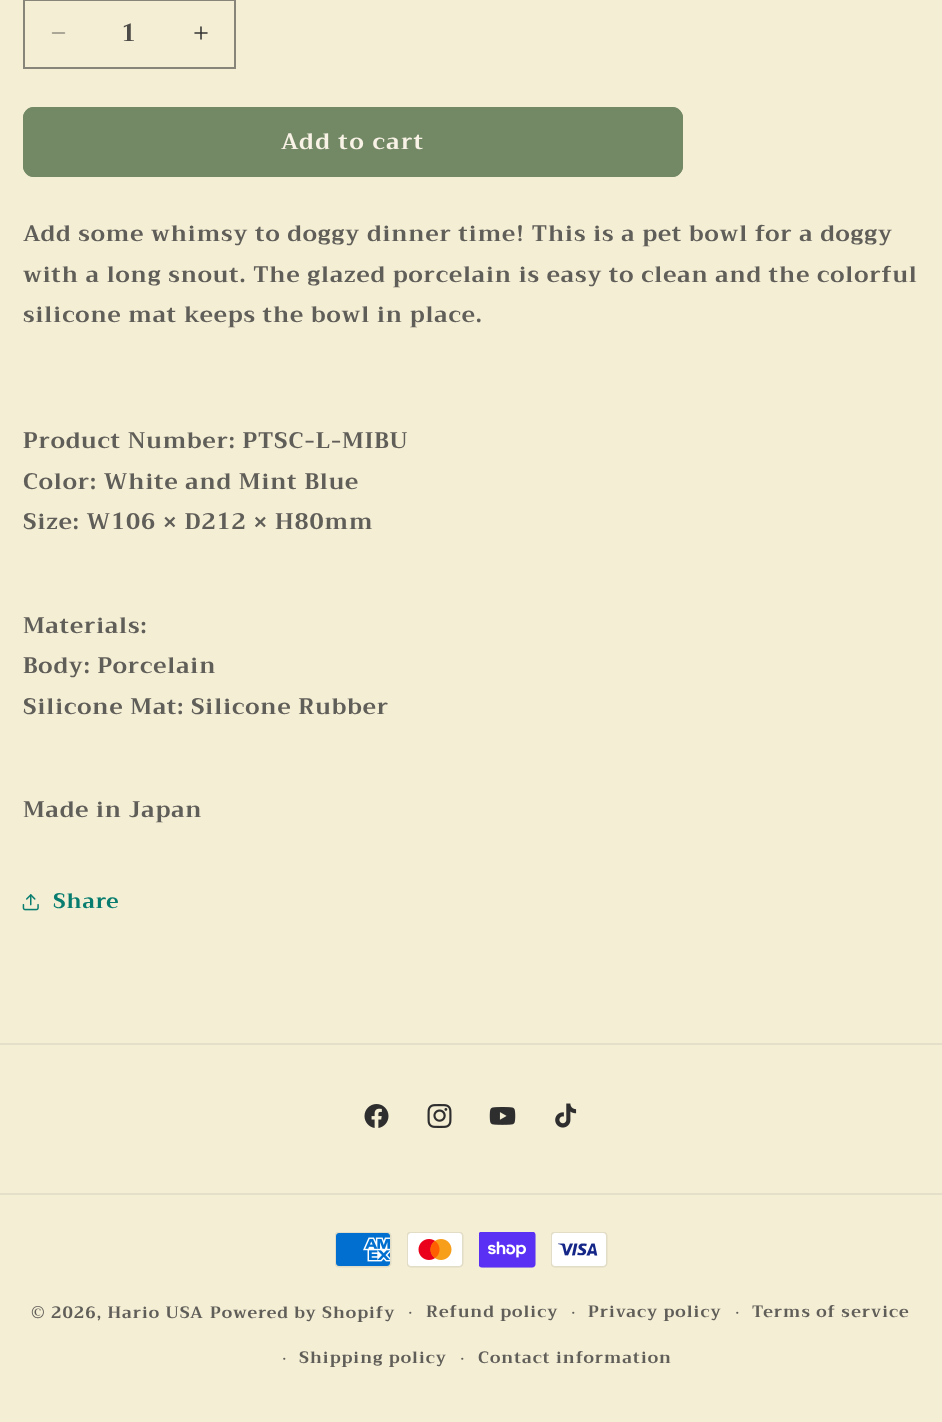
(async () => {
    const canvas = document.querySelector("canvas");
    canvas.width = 942;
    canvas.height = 1422;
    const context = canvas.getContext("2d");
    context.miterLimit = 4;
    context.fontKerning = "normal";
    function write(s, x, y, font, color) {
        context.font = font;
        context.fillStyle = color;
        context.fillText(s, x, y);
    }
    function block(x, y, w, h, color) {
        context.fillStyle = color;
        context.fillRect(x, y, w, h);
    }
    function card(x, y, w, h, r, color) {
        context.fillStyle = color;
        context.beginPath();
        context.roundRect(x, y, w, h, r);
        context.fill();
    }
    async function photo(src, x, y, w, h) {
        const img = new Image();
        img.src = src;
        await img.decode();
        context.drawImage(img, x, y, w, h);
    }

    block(0, 0, 942, 1422, "rgb(244, 238, 213)");
    await photo("media/1.png", 51, 32, 15, 2);
    await photo("media/2.png", 194, 26, 14, 14);
    context.strokeStyle = "rgb(135, 132, 121)";
    context.lineWidth = 2;
    context.strokeRect(24, 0, 211, 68);
    write("1", 121, 41, "bold 24px Trirong", "rgb(76, 75, 71)");
    card(23, 107, 660, 70, 11, "rgb(115, 137, 101)");
    context.beginPath();
    context.roundRect(24, 108, 658, 68, 10);
    context.strokeStyle = "rgb(115, 137, 101)";
    context.stroke();
    context.letterSpacing = "1.5px";
    write("Add to cart", 281, 149, "bold 22.5px Trirong", "rgb(249, 242, 230)");
    context.letterSpacing = "0.9px";
    write("Add some whimsy to doggy dinner time! This is a pet bowl for a doggy", 23, 241, "bold 22.5px Trirong", "rgb(96, 94, 88)");
    write("with a long snout. The glazed porcelain is easy to clean and the colorful", 23, 282, "bold 22.5px Trirong", "rgb(96, 94, 88)");
    write("silicone mat keeps the bowl in place.", 23, 322, "bold 22.5px Trirong", "rgb(96, 94, 88)");
    write("Product Number: PTSC-L-MIBU", 23, 448, "bold 22.5px Trirong", "rgb(96, 94, 88)");
    write("Color: White and Mint Blue", 23, 489, "bold 22.5px Trirong", "rgb(96, 94, 88)");
    write("Size: W106 × D212 × H80mm", 23, 529, "bold 22.5px Trirong", "rgb(96, 94, 88)");
    write("Materials:", 23, 633, "bold 22.5px Trirong", "rgb(96, 94, 88)");
    write("Body: Porcelain", 23, 673, "bold 22.5px Trirong", "rgb(96, 94, 88)");
    write("Silicone Mat: Silicone Rubber", 23, 714, "bold 22.5px Trirong", "rgb(96, 94, 88)");
    write("Made in Japan", 23, 817, "bold 22.5px Trirong", "rgb(96, 94, 88)");
    await photo("media/3.png", 22, 894, 17, 17);
    write("Share", 53, 908, "bold 21px Trirong", "rgb(8, 125, 111)");
    block(0, 1043, 942, 2, "rgb(228, 223, 200)");
    await photo("media/4.png", 364, 1104, 25, 24);
    await photo("media/5.png", 427, 1104, 25, 24);
    await photo("media/6.png", 489, 1107, 27, 18);
    await photo("media/7.png", 555, 1103, 22, 25);
    block(0, 1193, 942, 2, "rgb(228, 223, 200)");
    await photo("media/8.png", 335, 1232, 57, 36);
    await photo("media/9.png", 407, 1232, 57, 36);
    await photo("media/10.png", 479, 1232, 57, 36);
    await photo("media/11.png", 551, 1232, 57, 36);
    context.letterSpacing = "1px";
    write("© 2026, Hario USA", 31, 1318, "bold 16.5px Trirong", "rgb(96, 94, 88)");
    write("·", 408, 1318, "bold 15px Trirong", "rgb(96, 94, 88)");
    write("Refund policy", 426, 1317, "bold 16.5px Trirong", "rgb(96, 94, 88)");
    write("·", 571, 1318, "bold 15px Trirong", "rgb(96, 94, 88)");
    write("Privacy policy", 588, 1317, "bold 16.5px Trirong", "rgb(96, 94, 88)");
    write("·", 735, 1318, "bold 15px Trirong", "rgb(96, 94, 88)");
    write("Terms of service", 752, 1317, "bold 16.5px Trirong", "rgb(96, 94, 88)");
    write("·", 282, 1364, "bold 15px Trirong", "rgb(96, 94, 88)");
    write("Shipping policy", 299, 1363, "bold 16.5px Trirong", "rgb(96, 94, 88)");
    write("·", 460, 1364, "bold 15px Trirong", "rgb(96, 94, 88)");
    write("Contact information", 478, 1363, "bold 16.5px Trirong", "rgb(96, 94, 88)");
    write("Powered by Shopify", 210, 1318, "bold 16.5px Trirong", "rgb(96, 94, 88)");
})();
